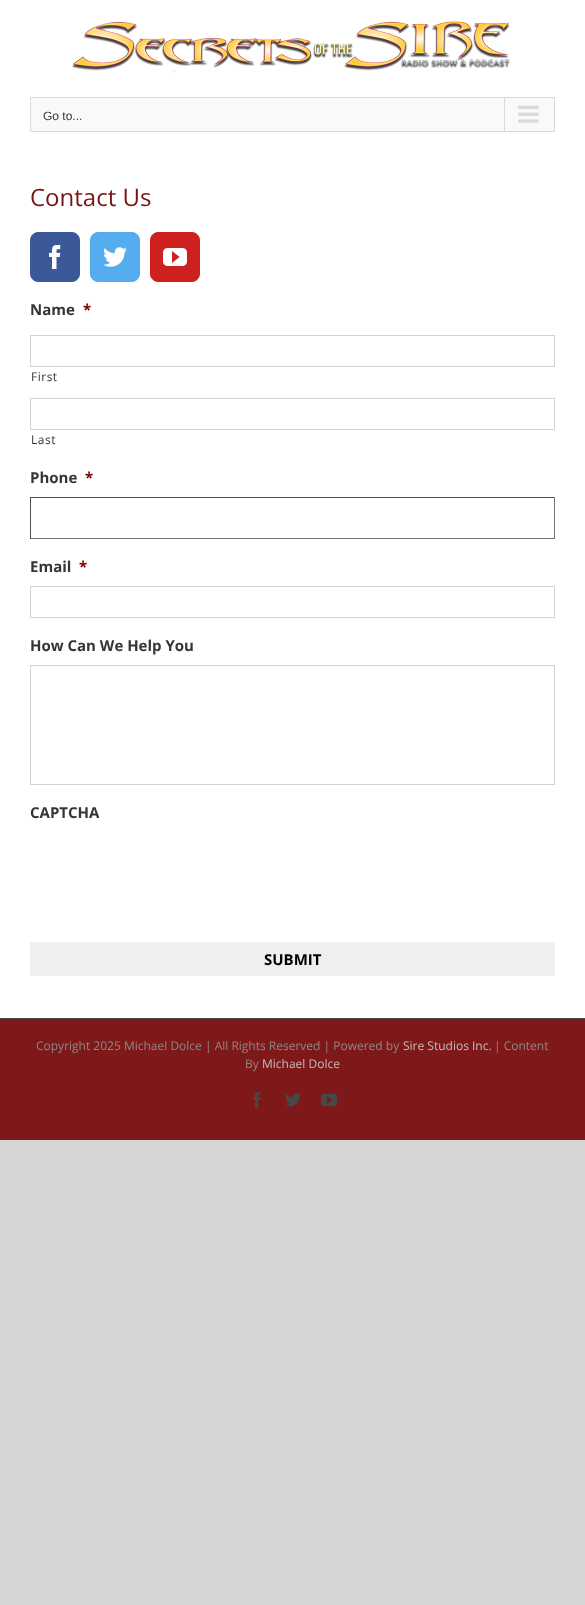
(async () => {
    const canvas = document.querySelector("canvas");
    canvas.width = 585;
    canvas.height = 1605;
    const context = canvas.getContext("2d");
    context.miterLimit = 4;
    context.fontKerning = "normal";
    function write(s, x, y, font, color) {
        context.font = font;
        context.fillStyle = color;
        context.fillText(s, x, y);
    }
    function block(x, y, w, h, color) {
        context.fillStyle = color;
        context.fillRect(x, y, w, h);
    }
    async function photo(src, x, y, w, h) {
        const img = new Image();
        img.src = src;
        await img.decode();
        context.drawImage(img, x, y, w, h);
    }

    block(0, 0, 585, 1605, "rgb(215, 214, 214)");
    block(0, 0, 585, 1018, "rgb(255, 255, 255)");
    await photo("media/1.png", 72, 21, 438, 52);
    context.fillStyle = "rgb(249, 249, 249)";
    context.beginPath();
    context.rect(30.5, 97.5, 524, 34);
    context.fill();
    context.strokeStyle = "rgb(218, 218, 218)";
    context.stroke();
    write("Go to...", 43, 120, "12px Liberation Sans", "rgb(53, 53, 53)");
    block(504, 98, 1, 33, "rgb(218, 218, 218)");
    await photo("media/2.png", 518, 105, 21, 18);
    write("Contact Us", 30, 206, "24px Open Sans", "rgb(119, 21, 21)");
    context.fillStyle = "rgb(59, 89, 152)";
    context.beginPath();
    context.roundRect(30.5, 232.5, 49, 49, 7.5);
    context.fill();
    context.strokeStyle = "rgb(59, 89, 152)";
    context.stroke();
    await photo("media/3.png", 49, 245, 12, 24);
    context.fillStyle = "rgb(85, 172, 238)";
    context.beginPath();
    context.roundRect(90.5, 232.5, 49, 49, 7.5);
    context.fill();
    context.strokeStyle = "rgb(85, 172, 238)";
    context.stroke();
    await photo("media/4.png", 103, 247, 24, 20);
    context.fillStyle = "rgb(205, 32, 31)";
    context.beginPath();
    context.roundRect(150.5, 232.5, 49, 49, 7.5);
    context.fill();
    context.strokeStyle = "rgb(205, 32, 31)";
    context.stroke();
    await photo("media/5.png", 163, 248, 24, 18);
    write("Name", 30, 315, "bold 15px Open Sans", "rgb(53, 53, 53)");
    write("*", 83, 315, "bold 15px Open Sans", "rgb(121, 0, 0)");
    context.strokeStyle = "rgb(210, 210, 210)";
    context.strokeRect(30.5, 335.5, 524, 31);
    context.letterSpacing = "0.5px";
    write("First", 31, 381, "12px Open Sans", "rgb(53, 53, 53)");
    context.strokeRect(30.5, 398.5, 524, 31);
    write("Last", 31, 444, "12px Open Sans", "rgb(53, 53, 53)");
    context.letterSpacing = "0px";
    write("Phone", 30, 483, "bold 15px Open Sans", "rgb(53, 53, 53)");
    write("*", 85, 483, "bold 15px Open Sans", "rgb(121, 0, 0)");
    block(30, 497, 525, 1, "rgb(79, 79, 79)");
    block(554, 497, 1, 42, "rgb(118, 118, 118)");
    block(30, 538, 525, 1, "rgb(118, 118, 118)");
    block(30, 497, 1, 42, "rgb(79, 79, 79)");
    write("Email", 30, 572, "bold 15px Open Sans", "rgb(53, 53, 53)");
    write("*", 79, 572, "bold 15px Open Sans", "rgb(121, 0, 0)");
    context.strokeRect(30.5, 586.5, 524, 31);
    write("How Can We Help You", 30, 651, "bold 15px Open Sans", "rgb(53, 53, 53)");
    context.strokeRect(30.5, 665.5, 524, 119);
    write("CAPTCHA", 30, 818, "bold 15px Open Sans", "rgb(53, 53, 53)");
    block(30, 942, 525, 34, "rgb(239, 239, 239)");
    write("SUBMIT", 264, 965, "bold 15px Open Sans", "rgb(0, 0, 0)");
    block(0, 1019, 585, 121, "rgb(127, 25, 25)");
    block(0, 1018, 585, 1, "rgb(75, 76, 77)");
    write("Copyright 2025 Michael Dolce | All Rights Reserved | Powered by", 36, 1050, "12px Open Sans", "rgb(140, 137, 137)");
    write("Sire Studios Inc.", 403, 1050, "12px Open Sans", "rgb(191, 191, 191)");
    write("| Content", 494, 1050, "12px Open Sans", "rgb(140, 137, 137)");
    write("By", 245, 1068, "12px Open Sans", "rgb(140, 137, 137)");
    write("Michael Dolce", 262, 1068, "12px Open Sans", "rgb(191, 191, 191)");
    await photo("media/6.png", 253, 1092, 8, 16);
    await photo("media/7.png", 285, 1093, 16, 14);
    await photo("media/8.png", 321, 1094, 16, 12);
})();
